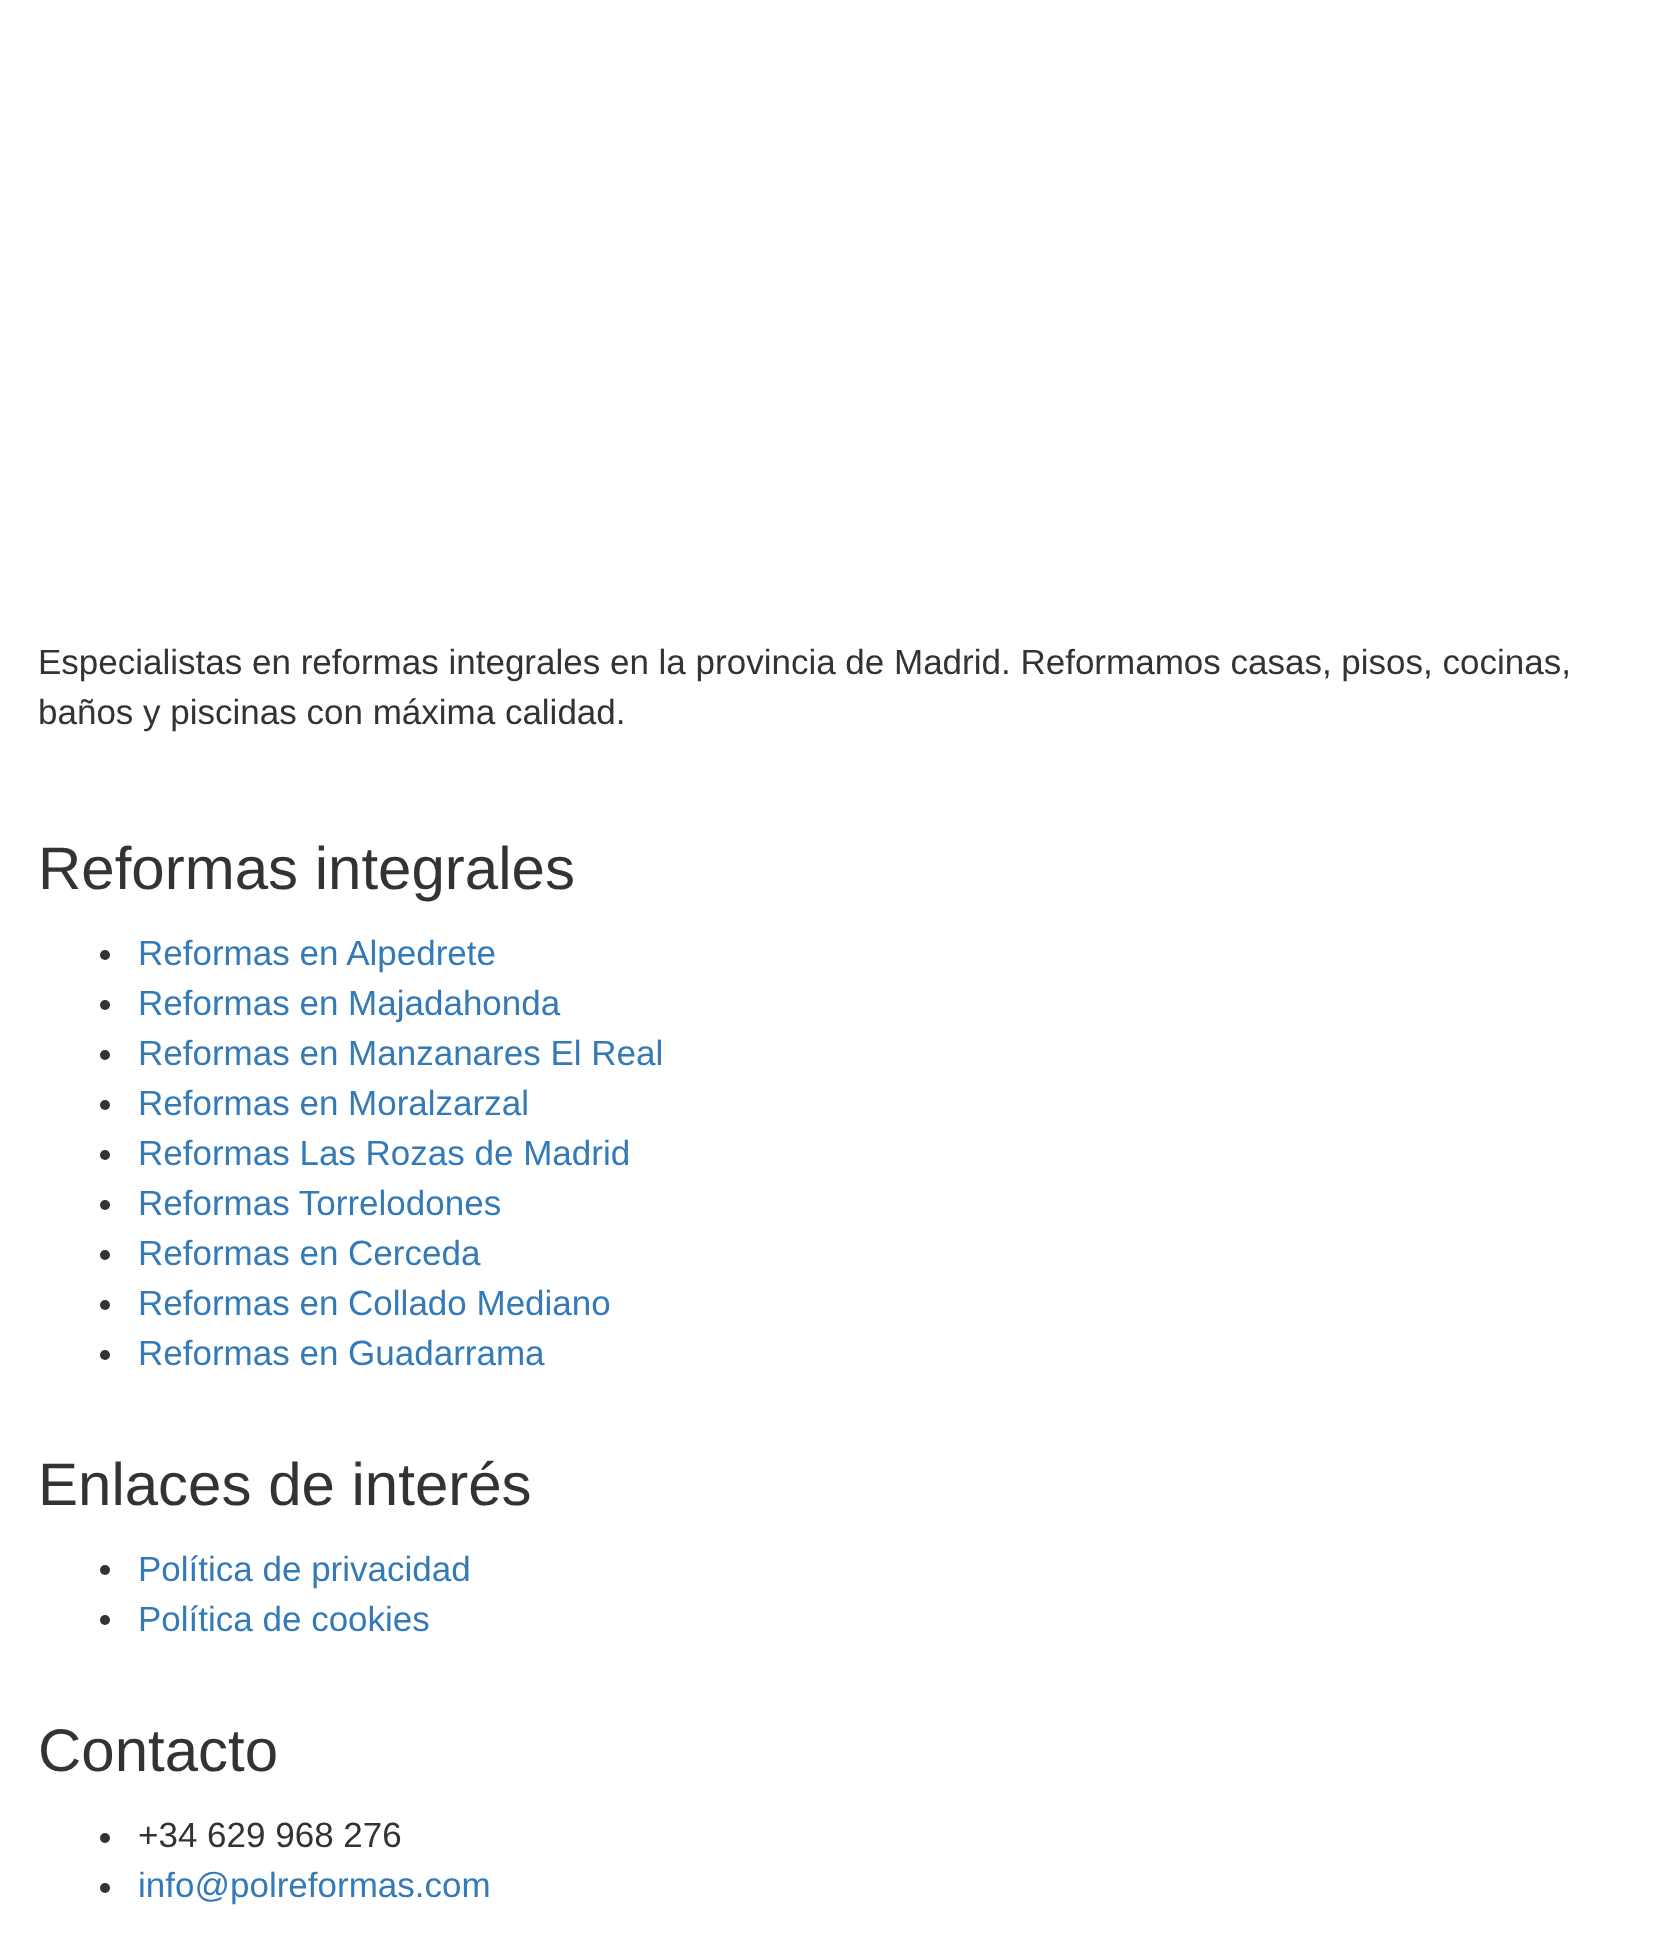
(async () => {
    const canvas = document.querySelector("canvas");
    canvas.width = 1678;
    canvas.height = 1936;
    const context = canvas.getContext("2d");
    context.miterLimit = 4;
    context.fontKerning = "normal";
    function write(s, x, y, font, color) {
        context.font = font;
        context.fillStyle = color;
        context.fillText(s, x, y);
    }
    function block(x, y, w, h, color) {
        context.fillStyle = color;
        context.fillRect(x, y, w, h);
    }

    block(0, 0, 1678, 1936, "rgb(255, 255, 255)");
    write("Especialistas en reformas integrales en la provincia de Madrid. Reformamos casas, pisos, cocinas,", 38, 674, "35px Liberation Sans", "rgb(51, 51, 51)");
    write("baños y piscinas con máxima calidad.", 38, 724, "35px Liberation Sans", "rgb(51, 51, 51)");
    write("Reformas integrales", 38, 889, "60px Liberation Sans", "rgb(51, 51, 51)");
    context.beginPath();
    context.arc(105, 955, 5, 0, Math.PI * 2);
    context.fill();
    write("Reformas en Alpedrete", 138, 965, "35px Liberation Sans", "rgb(51, 122, 183)");
    context.fillStyle = "rgb(51, 51, 51)";
    context.beginPath();
    context.arc(105, 1005, 5, 0, Math.PI * 2);
    context.fill();
    write("Reformas en Majadahonda", 138, 1015, "35px Liberation Sans", "rgb(51, 122, 183)");
    context.fillStyle = "rgb(51, 51, 51)";
    context.beginPath();
    context.arc(105, 1055, 5, 0, Math.PI * 2);
    context.fill();
    write("Reformas en Manzanares El Real", 138, 1065, "35px Liberation Sans", "rgb(51, 122, 183)");
    context.fillStyle = "rgb(51, 51, 51)";
    context.beginPath();
    context.arc(105, 1105, 5, 0, Math.PI * 2);
    context.fill();
    write("Reformas en Moralzarzal", 138, 1115, "35px Liberation Sans", "rgb(51, 122, 183)");
    context.fillStyle = "rgb(51, 51, 51)";
    context.beginPath();
    context.arc(105, 1155, 5, 0, Math.PI * 2);
    context.fill();
    write("Reformas Las Rozas de Madrid", 138, 1165, "35px Liberation Sans", "rgb(51, 122, 183)");
    context.fillStyle = "rgb(51, 51, 51)";
    context.beginPath();
    context.arc(105, 1205, 5, 0, Math.PI * 2);
    context.fill();
    write("Reformas Torrelodones", 138, 1215, "35px Liberation Sans", "rgb(51, 122, 183)");
    context.fillStyle = "rgb(51, 51, 51)";
    context.beginPath();
    context.arc(105, 1255, 5, 0, Math.PI * 2);
    context.fill();
    write("Reformas en Cerceda", 138, 1265, "35px Liberation Sans", "rgb(51, 122, 183)");
    context.fillStyle = "rgb(51, 51, 51)";
    context.beginPath();
    context.arc(105, 1305, 5, 0, Math.PI * 2);
    context.fill();
    write("Reformas en Collado Mediano", 138, 1315, "35px Liberation Sans", "rgb(51, 122, 183)");
    context.fillStyle = "rgb(51, 51, 51)";
    context.beginPath();
    context.arc(105, 1355, 5, 0, Math.PI * 2);
    context.fill();
    write("Reformas en Guadarrama", 138, 1365, "35px Liberation Sans", "rgb(51, 122, 183)");
    write("Enlaces de interés", 38, 1505, "60px Liberation Sans", "rgb(51, 51, 51)");
    context.beginPath();
    context.arc(105, 1570, 5, 0, Math.PI * 2);
    context.fill();
    write("Política de privacidad", 138, 1581, "35px Liberation Sans", "rgb(51, 122, 183)");
    context.fillStyle = "rgb(51, 51, 51)";
    context.beginPath();
    context.arc(105, 1620, 5, 0, Math.PI * 2);
    context.fill();
    write("Política de cookies", 138, 1631, "35px Liberation Sans", "rgb(51, 122, 183)");
    write("Contacto", 38, 1771, "60px Liberation Sans", "rgb(51, 51, 51)");
    context.beginPath();
    context.arc(105, 1838, 5, 0, Math.PI * 2);
    context.fill();
    write("+34 629 968 276", 138, 1847, "35px Liberation Sans", "rgb(51, 51, 51)");
    context.beginPath();
    context.arc(105, 1888, 5, 0, Math.PI * 2);
    context.fill();
    write("info@polreformas.com", 138, 1897, "35px Liberation Sans", "rgb(51, 122, 183)");
})();
